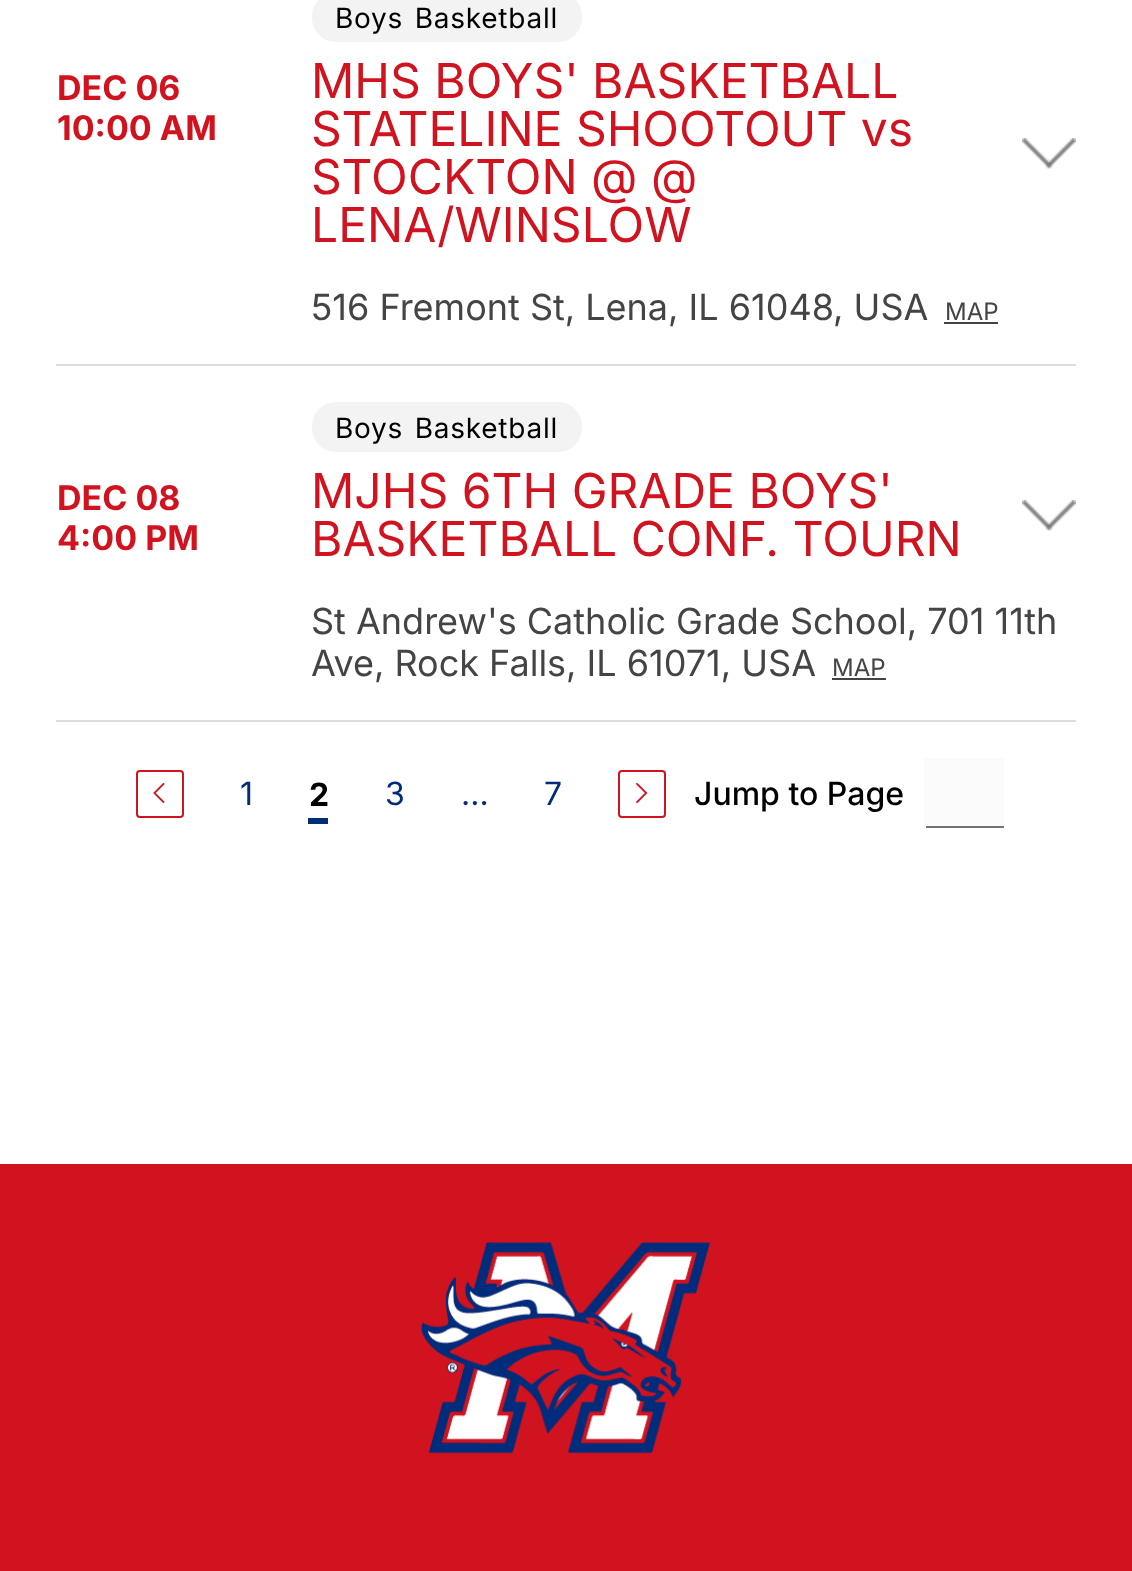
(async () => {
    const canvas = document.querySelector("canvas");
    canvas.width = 1132;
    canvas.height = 1571;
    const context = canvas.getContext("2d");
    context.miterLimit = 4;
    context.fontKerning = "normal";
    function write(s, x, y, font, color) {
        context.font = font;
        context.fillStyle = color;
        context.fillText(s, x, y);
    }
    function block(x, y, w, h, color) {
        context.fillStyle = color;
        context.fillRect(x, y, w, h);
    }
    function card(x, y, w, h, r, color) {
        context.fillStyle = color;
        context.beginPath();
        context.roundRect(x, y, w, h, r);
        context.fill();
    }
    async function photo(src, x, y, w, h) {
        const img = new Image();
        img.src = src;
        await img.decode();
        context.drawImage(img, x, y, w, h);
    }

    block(0, 0, 1132, 1571, "rgb(255, 255, 255)");
    block(56, 364, 1020, 2, "rgb(221, 221, 221)");
    write("DEC 06", 57, 100, "bold 34px Inter", "rgb(209, 18, 31)");
    write("10:00 AM", 57, 140, "bold 34px Inter", "rgb(209, 18, 31)");
    card(312, -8, 270, 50, 24, "rgb(243, 243, 243)");
    context.letterSpacing = "0.75px";
    context.wordSpacing = "3px";
    write("Boys Basketball", 335, 28, "28px Inter", "rgb(0, 0, 0)");
    await photo("media/1.png", 1022, 138, 54, 31);
    context.letterSpacing = "0px";
    context.wordSpacing = "0px";
    write("MHS BOYS' BASKETBALL", 311, 98, "48px Inter", "rgb(209, 18, 31)");
    write("STATELINE SHOOTOUT vs", 311, 146, "48px Inter", "rgb(209, 18, 31)");
    write("STOCKTON @ @", 311, 194, "48px Inter", "rgb(209, 18, 31)");
    write("LENA/WINSLOW", 311, 242, "48px Inter", "rgb(209, 18, 31)");
    write("516 Fremont St, Lena, IL 61048, USA", 311, 320, "36px Inter", "rgb(68, 68, 68)");
    write("MAP", 945, 320, "24px Inter", "rgb(68, 68, 68)");
    block(944, 322, 54, 2, "rgb(68, 68, 68)");
    block(56, 720, 1020, 2, "rgb(221, 221, 221)");
    write("DEC 08", 57, 510, "bold 34px Inter", "rgb(209, 18, 31)");
    write("4:00 PM", 57, 550, "bold 34px Inter", "rgb(209, 18, 31)");
    card(312, 402, 270, 50, 24, "rgb(243, 243, 243)");
    context.letterSpacing = "0.75px";
    context.wordSpacing = "3px";
    write("Boys Basketball", 335, 438, "28px Inter", "rgb(0, 0, 0)");
    await photo("media/1.png", 1022, 500, 54, 31);
    context.letterSpacing = "0px";
    context.wordSpacing = "0px";
    write("MJHS 6TH GRADE BOYS'", 311, 508, "48px Inter", "rgb(209, 18, 31)");
    write("BASKETBALL CONF. TOURN", 311, 556, "48px Inter", "rgb(209, 18, 31)");
    write("St Andrew's Catholic Grade School, 701 11th", 311, 634, "36px Inter", "rgb(68, 68, 68)");
    write("Ave, Rock Falls, IL 61071, USA", 311, 676, "36px Inter", "rgb(68, 68, 68)");
    write("MAP", 832, 676, "24px Inter", "rgb(68, 68, 68)");
    block(832, 678, 54, 2, "rgb(68, 68, 68)");
    context.beginPath();
    context.roundRect(137, 771, 46, 46, 3);
    context.strokeStyle = "rgb(209, 18, 31)";
    context.lineWidth = 2;
    context.stroke();
    await photo("media/2.png", 153, 783, 12, 20);
    write("1", 240, 805, "32px Inter", "rgb(1, 44, 123)");
    block(308, 818, 20, 6, "rgb(1, 44, 123)");
    write("2", 309, 806, "bold 32px Inter", "rgb(0, 0, 0)");
    write("3", 385, 805, "32px Inter", "rgb(1, 44, 123)");
    write("...", 461, 805, "32px Inter", "rgb(1, 44, 123)");
    write("7", 544, 805, "32px Inter", "rgb(1, 44, 123)");
    context.beginPath();
    context.roundRect(619, 771, 46, 46, 3);
    context.stroke();
    await photo("media/3.png", 636, 783, 12, 20);
    write("Jump to Page", 694, 805, "500 32px Inter", "rgb(0, 0, 0)");
    block(926, 758, 78, 68, "rgb(251, 251, 251)");
    block(924, 826, 80, 2, "rgb(116, 116, 116)");
    block(924, 758, 2, 70, "rgb(251, 251, 251)");
    block(0, 1164, 1132, 407, "rgb(209, 18, 31)");
    await photo("media/4.png", 421, 1241, 290, 213);
})();
